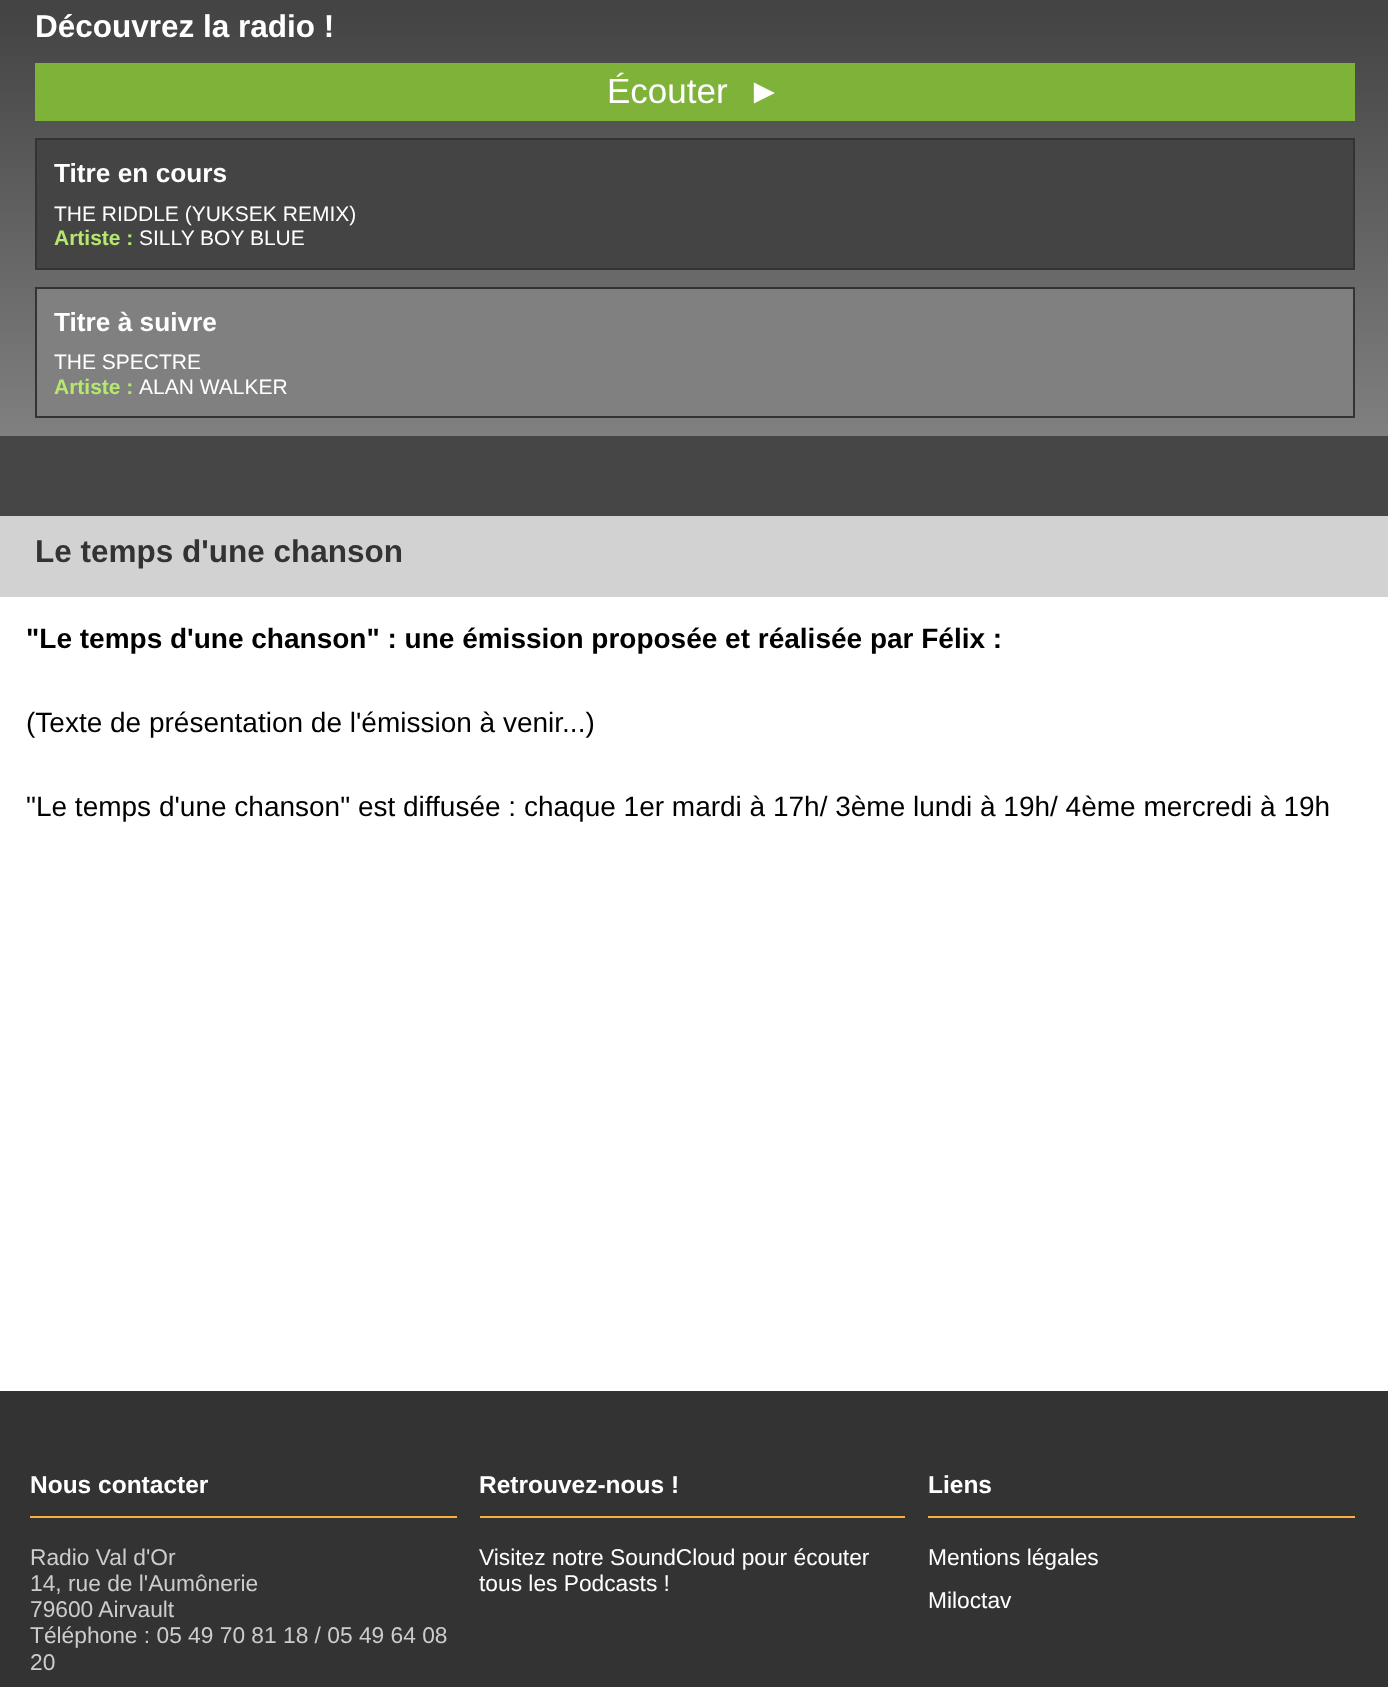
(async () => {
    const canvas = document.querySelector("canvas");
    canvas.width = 1388;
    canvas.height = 1687;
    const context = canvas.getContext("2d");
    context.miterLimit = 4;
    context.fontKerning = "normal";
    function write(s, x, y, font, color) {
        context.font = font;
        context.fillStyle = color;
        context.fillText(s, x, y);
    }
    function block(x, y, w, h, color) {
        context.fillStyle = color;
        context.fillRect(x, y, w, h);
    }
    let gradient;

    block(0, 0, 1388, 1687, "rgb(255, 255, 255)");
    gradient = context.createLinearGradient(695, -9, 695, 436);
    gradient.addColorStop(0.05, "rgb(68, 68, 68)");
    gradient.addColorStop(1, "rgb(128, 128, 128)");
    context.fillStyle = gradient;
    context.fillRect(0, 0, 1388, 436);
    write("Découvrez la radio !", 35, 37, "bold 31.5px Liberation Sans", "rgb(255, 255, 255)");
    block(35, 63, 1320, 58, "rgb(127, 178, 57)");
    write("Écouter  ►", 607, 103, "35px Liberation Sans", "rgb(255, 255, 255)");
    context.fillStyle = "rgb(68, 68, 68)";
    context.beginPath();
    context.rect(36, 139, 1318, 130);
    context.fill();
    context.strokeStyle = "rgb(51, 51, 51)";
    context.lineWidth = 2;
    context.stroke();
    write("Titre en cours", 54, 182, "bold 26.25px Liberation Sans", "rgb(255, 255, 255)");
    write("THE RIDDLE (YUKSEK REMIX)", 54, 221, "21px Liberation Sans", "rgb(255, 255, 255)");
    write("Artiste :", 54, 245, "bold 21px Liberation Sans", "rgb(182, 231, 110)");
    write("SILLY BOY BLUE", 139, 245, "21px Liberation Sans", "rgb(255, 255, 255)");
    context.fillStyle = "rgb(128, 128, 128)";
    context.beginPath();
    context.rect(36, 288, 1318, 129);
    context.fill();
    context.stroke();
    write("Titre à suivre", 54, 331, "bold 26.25px Liberation Sans", "rgb(255, 255, 255)");
    write("THE SPECTRE", 54, 369, "21px Liberation Sans", "rgb(255, 255, 255)");
    write("Artiste :", 54, 394, "bold 21px Liberation Sans", "rgb(182, 231, 110)");
    write("ALAN WALKER", 139, 394, "21px Liberation Sans", "rgb(255, 255, 255)");
    block(0, 516, 1388, 81, "rgb(210, 210, 210)");
    write("Le temps d'une chanson", 35, 562, "bold 31.5px Liberation Sans", "rgb(51, 51, 51)");
    write("\"Le temps d'une chanson\" : une émission proposée et réalisée par Félix :", 26, 648, "bold 28px Liberation Sans", "rgb(0, 0, 0)");
    write("(Texte de présentation de l'émission à venir...)", 26, 732, "28px Liberation Sans", "rgb(0, 0, 0)");
    write("\"Le temps d'une chanson\" est diffusée : chaque 1er mardi à 17h/ 3ème lundi à 19h/ 4ème mercredi à 19h", 26, 816, "28px Liberation Sans", "rgb(0, 0, 0)");
    block(0, 1391, 1388, 296, "rgb(51, 51, 51)");
    block(0, 436, 1388, 80, "rgb(70, 70, 70)");
    block(30, 1516, 427, 2, "rgb(251, 175, 65)");
    write("Nous contacter", 30, 1493, "bold 24.5px Liberation Sans", "rgb(255, 255, 255)");
    write("Radio Val d'Or", 30, 1565, "22.75px Liberation Sans", "rgb(204, 204, 204)");
    write("14, rue de l'Aumônerie", 30, 1591, "22.75px Liberation Sans", "rgb(204, 204, 204)");
    write("79600 Airvault", 30, 1617, "22.75px Liberation Sans", "rgb(204, 204, 204)");
    write("Téléphone : 05 49 70 81 18 / 05 49 64 08", 30, 1643, "22.75px Liberation Sans", "rgb(204, 204, 204)");
    write("20", 30, 1670, "22.75px Liberation Sans", "rgb(204, 204, 204)");
    block(480, 1516, 425, 2, "rgb(251, 175, 65)");
    write("Retrouvez-nous !", 479, 1493, "bold 24.5px Liberation Sans", "rgb(255, 255, 255)");
    write("Visitez notre SoundCloud pour écouter", 479, 1565, "22.75px Liberation Sans", "rgb(255, 255, 255)");
    write("tous les Podcasts !", 479, 1591, "22.75px Liberation Sans", "rgb(255, 255, 255)");
    block(928, 1516, 427, 2, "rgb(251, 175, 65)");
    write("Liens", 928, 1493, "bold 24.5px Liberation Sans", "rgb(255, 255, 255)");
    write("Mentions légales", 928, 1565, "22.75px Liberation Sans", "rgb(255, 255, 255)");
    write("Miloctav", 928, 1608, "22.75px Liberation Sans", "rgb(255, 255, 255)");
})();
